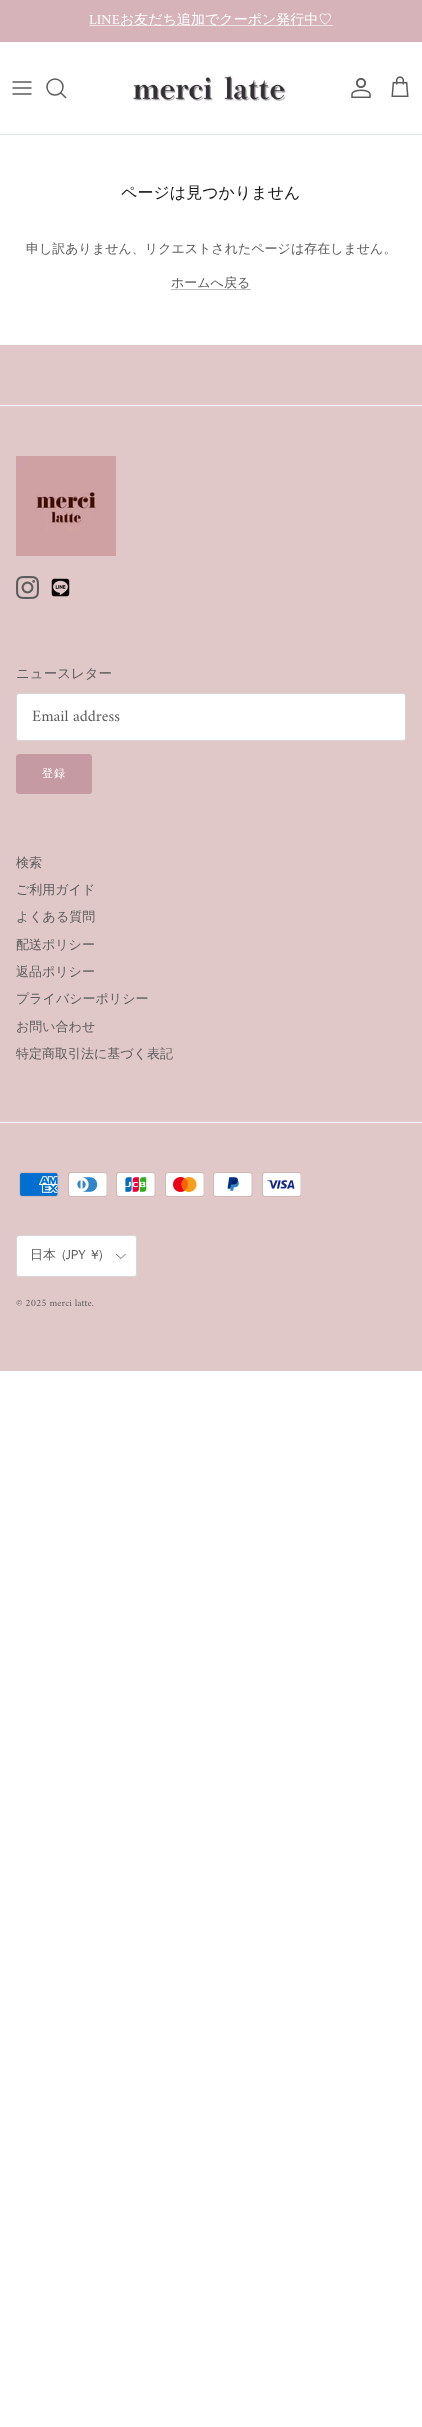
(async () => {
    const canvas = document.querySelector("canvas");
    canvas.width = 422;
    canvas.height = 2427;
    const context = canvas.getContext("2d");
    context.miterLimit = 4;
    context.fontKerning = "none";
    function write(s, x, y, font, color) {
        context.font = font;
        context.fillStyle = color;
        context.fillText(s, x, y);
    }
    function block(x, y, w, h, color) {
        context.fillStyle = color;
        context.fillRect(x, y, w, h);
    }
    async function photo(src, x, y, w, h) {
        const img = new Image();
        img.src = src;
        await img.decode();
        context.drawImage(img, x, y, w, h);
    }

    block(0, 0, 422, 2427, "rgb(255, 255, 255)");
    block(0, 0, 422, 42, "rgb(214, 179, 185)");
    write("LINE", 89, 24, "14px Amiri", "rgb(255, 255, 255)");
    block(89, 25, 244, 1, "rgb(239, 225, 227)");
    write("お友だち追加でクーポン発行中♡", 120, 24, "500 14px WenQuanYi Zen Hei", "rgb(255, 255, 255)");
    block(0, 134, 422, 1, "rgb(223, 227, 232)");
    context.beginPath();
    context.moveTo(13, 88);
    context.lineTo(31, 88);
    context.moveTo(13, 82);
    context.lineTo(31, 82);
    context.moveTo(13, 94);
    context.lineTo(31, 94);
    context.strokeStyle = "rgb(92, 92, 92)";
    context.lineWidth = 1.5;
    context.lineCap = "round";
    context.lineJoin = "round";
    context.stroke();
    context.beginPath();
    context.arc(55, 87, 8, 0, Math.PI * 2);
    context.stroke();
    context.beginPath();
    context.moveTo(61, 93);
    context.lineTo(65.5, 97.5);
    context.lineCap = "square";
    context.lineJoin = "miter";
    context.stroke();
    await photo("media/1.png", 133, 75, 153, 26);
    await photo("media/2.png", 351, 78, 20, 20);
    await photo("media/3.png", 391, 76, 18, 21);
    write("ページは見つかりません", 121, 198, "500 16px WenQuanYi Zen Hei", "rgb(23, 23, 23)");
    write("申し訳ありません、リクエストされたページは存在しません。", 26, 253, "500 13px WenQuanYi Zen Hei", "rgb(92, 92, 92)");
    write("ホームへ戻る", 171, 287, "500 13px WenQuanYi Zen Hei", "rgb(92, 92, 92)");
    block(171, 289, 80, 1, "rgb(190, 190, 190)");
    block(0, 345, 422, 60, "rgb(225, 200, 200)");
    block(0, 406, 422, 965, "rgb(225, 200, 200)");
    await photo("media/4.png", 16, 456, 100, 100);
    await photo("media/5.png", 16, 576, 23, 23);
    await photo("media/6.png", 51, 578, 19, 19);
    write("ニュースレター", 16, 678, "500 13.5px WenQuanYi Zen Hei", "rgb(92, 92, 92)");
    context.fillStyle = "rgb(255, 255, 255)";
    context.beginPath();
    context.roundRect(16.5, 693.5, 389, 47, 2.5);
    context.fill();
    context.strokeStyle = "rgb(214, 214, 214)";
    context.lineWidth = 1;
    context.stroke();
    write("Email address", 32, 721, "16px Amiri", "rgb(92, 92, 92)");
    context.fillStyle = "rgb(197, 154, 162)";
    context.beginPath();
    context.roundRect(16.5, 754.5, 75, 39, 2.5);
    context.fill();
    context.strokeStyle = "rgb(197, 154, 162)";
    context.stroke();
    context.letterSpacing = "1px";
    write("登録", 42, 777, "500 11px WenQuanYi Zen Hei", "rgb(255, 255, 255)");
    context.letterSpacing = "0px";
    write("検索", 16, 867, "500 13px WenQuanYi Zen Hei", "rgb(92, 92, 92)");
    write("ご利用ガイド", 16, 894, "500 13px WenQuanYi Zen Hei", "rgb(92, 92, 92)");
    write("よくある質問", 16, 921, "500 13px WenQuanYi Zen Hei", "rgb(92, 92, 92)");
    write("配送ポリシー", 16, 949, "500 13px WenQuanYi Zen Hei", "rgb(92, 92, 92)");
    write("返品ポリシー", 16, 976, "500 13px WenQuanYi Zen Hei", "rgb(92, 92, 92)");
    write("プライバシーポリシー", 16, 1003, "500 13px WenQuanYi Zen Hei", "rgb(92, 92, 92)");
    write("お問い合わせ", 16, 1031, "500 13px WenQuanYi Zen Hei", "rgb(92, 92, 92)");
    write("特定商取引法に基づく表記", 16, 1058, "500 13px WenQuanYi Zen Hei", "rgb(92, 92, 92)");
    block(0, 1122, 422, 1, "rgb(255, 255, 255)");
    await photo("media/7.png", 19, 1172, 40, 25);
    await photo("media/8.png", 68, 1172, 39, 25);
    await photo("media/9.png", 116, 1172, 40, 25);
    await photo("media/10.png", 165, 1172, 39, 25);
    await photo("media/11.png", 213, 1172, 40, 25);
    await photo("media/12.png", 262, 1172, 39, 25);
    context.beginPath();
    context.roundRect(16.5, 1235.5, 120, 41, 2.5);
    context.fill();
    context.strokeStyle = "rgb(214, 214, 214)";
    context.stroke();
    context.wordSpacing = "2px";
    write("日本 (JPY", 30, 1259, "500 13px WenQuanYi Zen Hei", "rgb(92, 92, 92)");
    context.wordSpacing = "0px";
    write("¥)", 91, 1259, "500 13px WenQuanYi Zen Hei", "rgb(92, 92, 92)");
    context.beginPath();
    context.moveTo(125.5, 1254);
    context.lineTo(121, 1258.5);
    context.lineTo(116, 1254);
    context.strokeStyle = "rgb(92, 92, 92)";
    context.lineWidth = 0.9;
    context.lineCap = "butt";
    context.stroke();
    write("© 2025 merci latte.", 16, 1306, "10px Amiri", "rgb(92, 92, 92)");
})();
